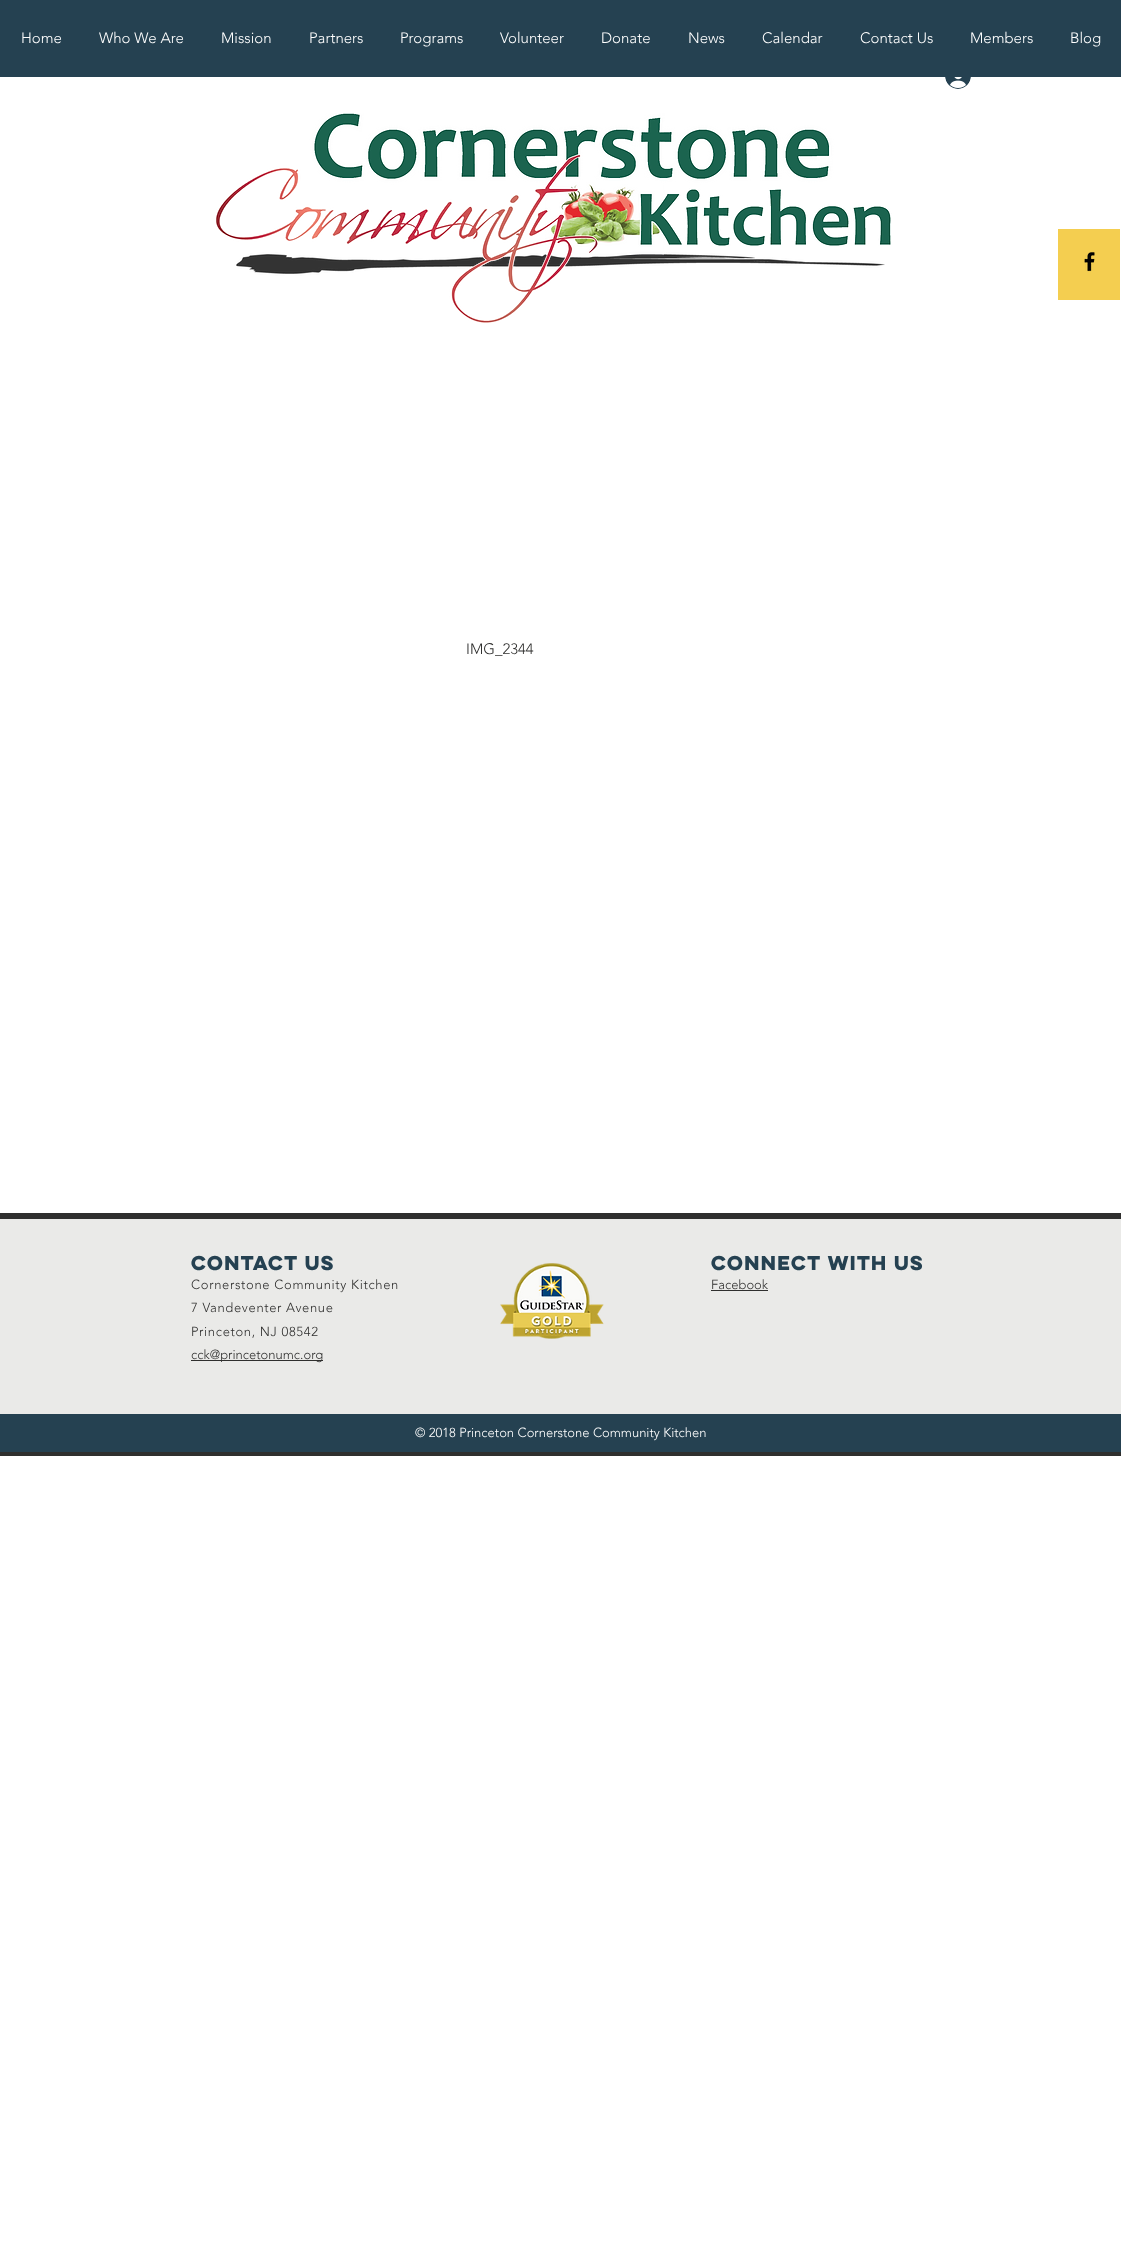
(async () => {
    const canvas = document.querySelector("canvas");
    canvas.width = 1121;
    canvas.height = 2256;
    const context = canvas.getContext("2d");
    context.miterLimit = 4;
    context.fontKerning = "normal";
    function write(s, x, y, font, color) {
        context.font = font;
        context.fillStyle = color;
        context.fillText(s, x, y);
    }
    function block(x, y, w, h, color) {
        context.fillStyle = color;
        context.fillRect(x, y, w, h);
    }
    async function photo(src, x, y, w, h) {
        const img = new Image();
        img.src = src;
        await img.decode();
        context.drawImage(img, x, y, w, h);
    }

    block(0, 0, 1121, 2256, "rgb(255, 255, 255)");
    block(0, 0, 1121, 77, "rgb(37, 65, 81)");
    write("Home", 21, 43, "300 15px 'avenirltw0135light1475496'", "rgb(255, 255, 255)");
    write("Who We Are", 99, 43, "300 15px 'avenirltw0135light1475496'", "rgb(255, 255, 255)");
    write("Mission", 221, 43, "300 15px 'avenirltw0135light1475496'", "rgb(255, 255, 255)");
    write("Partners", 309, 43, "300 15px 'avenirltw0135light1475496'", "rgb(255, 255, 255)");
    write("Programs", 400, 43, "300 15px 'avenirltw0135light1475496'", "rgb(255, 255, 255)");
    write("Volunteer", 500, 43, "300 15px 'avenirltw0135light1475496'", "rgb(255, 255, 255)");
    write("Donate", 601, 43, "300 15px 'avenirltw0135light1475496'", "rgb(255, 255, 255)");
    write("News", 688, 43, "300 15px 'avenirltw0135light1475496'", "rgb(255, 255, 255)");
    write("Calendar", 762, 43, "300 15px 'avenirltw0135light1475496'", "rgb(255, 255, 255)");
    write("Contact Us", 860, 43, "300 15px 'avenirltw0135light1475496'", "rgb(255, 255, 255)");
    write("Members", 970, 43, "300 15px 'avenirltw0135light1475496'", "rgb(255, 255, 255)");
    write("Blog", 1070, 43, "300 15px 'avenirltw0135light1475496'", "rgb(255, 255, 255)");
    await photo("media/1.png", 945, 77, 26, 12);
    block(1058, 229, 62, 71, "rgb(244, 206, 80)");
    await photo("media/2.png", 1084, 252, 11, 20);
    await photo("media/3.png", 216, 113, 676, 210);
    write("￼￼￼￼", 406, 654, "15px Liberation Sans", "rgb(47, 47, 46)");
    write("IMG_2344", 466, 654, "300 15px 'avenirltw0135light1475496'", "rgb(47, 47, 46)");
    block(0, 1219, 1121, 195, "rgb(234, 234, 232)");
    block(0, 1213, 1121, 6, "rgb(47, 47, 46)");
    block(0, 1452, 1121, 4, "rgb(47, 47, 46)");
    context.letterSpacing = "-2.75px";
    write("Contact Us", 191, 1270, "bold 18px 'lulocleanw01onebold'", "rgb(37, 65, 81)");
    await photo("media/4.png", 500, 1263, 104, 76);
    write("Connect with us", 711, 1270, "bold 18px 'lulocleanw01onebold'", "rgb(37, 65, 81)");
    context.letterSpacing = "0.65px";
    write("Cornerstone Community Kitchen", 191, 1289, "300 13px 'avenirltw0135light1475496'", "rgb(47, 47, 46)");
    write("7 Vandeventer Avenue", 191, 1312, "300 13px 'avenirltw0135light1475496'", "rgb(47, 47, 46)");
    write("Princeton, NJ 08542", 191, 1336, "300 13px 'avenirltw0135light1475496'", "rgb(47, 47, 46)");
    block(191, 1360, 132, 1, "rgb(47, 47, 46)");
    context.letterSpacing = "0px";
    write("cck@princetonumc.org", 191, 1359, "300 13px 'avenirltw0135light1475496'", "rgb(47, 47, 46)");
    write("Facebook", 711, 1289, "300 13px 'avenirltw0135light1475496'", "rgb(47, 47, 46)");
    block(711, 1290, 57, 1, "rgb(47, 47, 46)");
    block(0, 1414, 1121, 38, "rgb(37, 65, 81)");
    write("© 2018 Princeton Cornerstone Community Kitchen", 415, 1437, "300 13px 'avenirltw0135light1475496'", "rgb(255, 255, 255)");
})();
